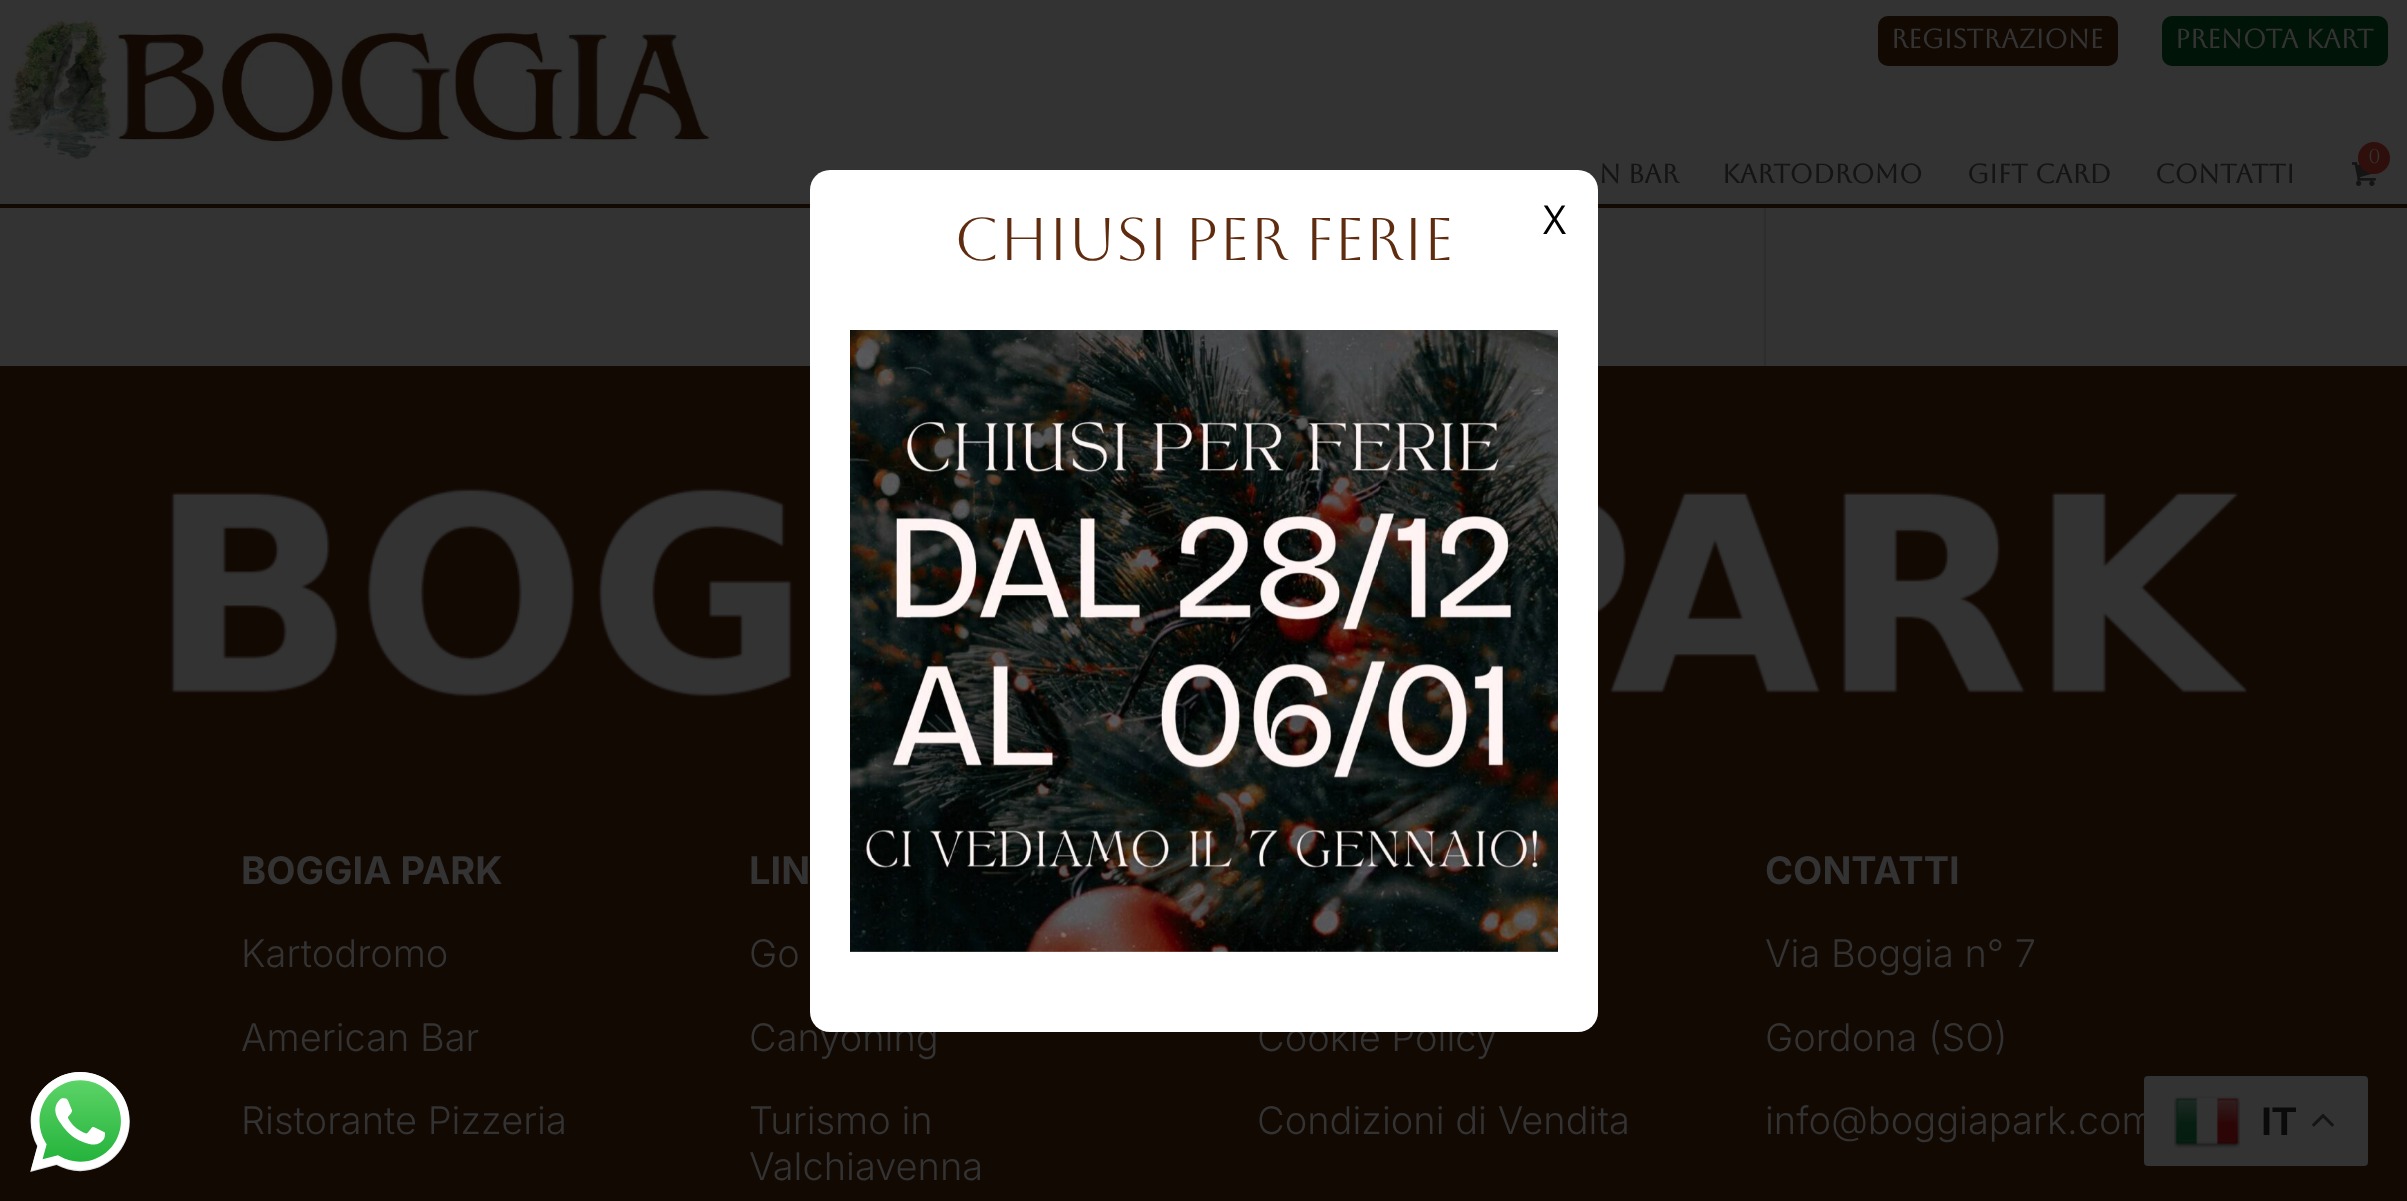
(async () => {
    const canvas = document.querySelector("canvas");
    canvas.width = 2407;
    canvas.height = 1201;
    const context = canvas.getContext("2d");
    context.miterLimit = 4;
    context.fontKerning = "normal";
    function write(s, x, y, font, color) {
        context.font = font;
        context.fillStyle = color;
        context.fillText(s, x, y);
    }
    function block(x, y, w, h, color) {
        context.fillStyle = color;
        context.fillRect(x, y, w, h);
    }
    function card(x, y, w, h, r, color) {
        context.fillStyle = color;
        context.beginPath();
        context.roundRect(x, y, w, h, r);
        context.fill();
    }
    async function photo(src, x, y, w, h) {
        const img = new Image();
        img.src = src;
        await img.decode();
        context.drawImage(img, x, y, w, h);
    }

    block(0, 0, 2407, 1201, "rgb(51, 51, 51)");
    block(0, 204, 2407, 4, "rgb(19, 9, 3)");
    await photo("media/1.png", 6, 13, 707, 147);
    card(1878, 16, 240, 50, 10, "rgb(19, 9, 3)");
    write("REGISTRAZIONE", 1891, 48, "bold 26.5px Aboreto", "rgb(51, 51, 51)");
    card(2162, 16, 226, 50, 10, "rgb(0, 20, 7)");
    write("PRENOTA KART", 2175, 48, "bold 26.5px Aboreto", "rgb(51, 51, 51)");
    await photo("media/2.png", 2352, 162, 24, 24);
    context.fillStyle = "rgb(47, 15, 11)";
    context.beginPath();
    context.arc(2374, 158, 16, 0, Math.PI * 2);
    context.fill();
    write("0", 2368, 163, "20px Aboreto", "rgb(51, 51, 51)");
    write("n Bar", 1599, 183, "bold 26.5px Aboreto", "rgb(20, 20, 20)");
    write("Kartodromo", 1722, 183, "bold 26.5px Aboreto", "rgb(20, 20, 20)");
    write("Gift Card", 1967, 183, "bold 26.5px Aboreto", "rgb(20, 20, 20)");
    write("Contatti", 2155, 183, "bold 26.5px Aboreto", "rgb(20, 20, 20)");
    block(1764, 208, 2, 158, "rgb(45, 45, 45)");
    block(0, 366, 2407, 835, "rgb(19, 9, 3)");
    block(172, 488, 2075, 209, "rgb(51, 51, 51)");
    await photo("media/3.png", 0, 440, 2407, 314);
    write("BOGGIA PARK", 241, 884, "bold 38px Inter", "rgb(51, 51, 51)");
    write("Kartodromo", 241, 967, "300 38px Inter", "rgb(51, 51, 51)");
    write("American Bar", 241, 1051, "300 38px Inter", "rgb(51, 51, 51)");
    write("Ristorante Pizzeria", 241, 1134, "300 38px Inter", "rgb(51, 51, 51)");
    write("LIN", 749, 884, "bold 38px Inter", "rgb(51, 51, 51)");
    write("Go", 749, 967, "300 38px Inter", "rgb(51, 51, 51)");
    write("Canyoning", 749, 1051, "300 38px Inter", "rgb(51, 51, 51)");
    write("Turismo in", 749, 1134, "300 38px Inter", "rgb(51, 51, 51)");
    write("Valchiavenna", 749, 1180, "300 38px Inter", "rgb(51, 51, 51)");
    write("Cookie Policy", 1257, 1051, "300 38px Inter", "rgb(51, 51, 51)");
    write("Condizioni di Vendita", 1257, 1134, "300 38px Inter", "rgb(51, 51, 51)");
    write("CONTATTI", 1765, 884, "bold 38px Inter", "rgb(51, 51, 51)");
    write("Via Boggia n° 7", 1765, 967, "300 38px Inter", "rgb(51, 51, 51)");
    write("Gordona (SO)", 1765, 1051, "300 38px Inter", "rgb(51, 51, 51)");
    write("info@boggiapark.com", 1765, 1134, "300 38px Inter", "rgb(51, 51, 51)");
    card(810, 170, 788, 862, 20, "rgb(255, 255, 255)");
    write("Chiusi per ferie", 954, 260, "60px Aboreto", "rgb(95, 44, 15)");
    write("X", 1543, 234, "40px Open Sans", "rgb(0, 0, 0)");
    await photo("media/4.png", 850, 330, 708, 622);
    await photo("media/5.png", 30, 1072, 100, 100);
    card(2144, 1076, 224, 90, 4, "rgb(51, 51, 51)");
    await photo("media/6.png", 2174, 1096, 66, 52);
    write("IT", 2261, 1135, "bold 40px Liberation Sans", "rgb(10, 10, 10)");
    await photo("media/7.png", 2312, 1113, 22, 14);
})();
